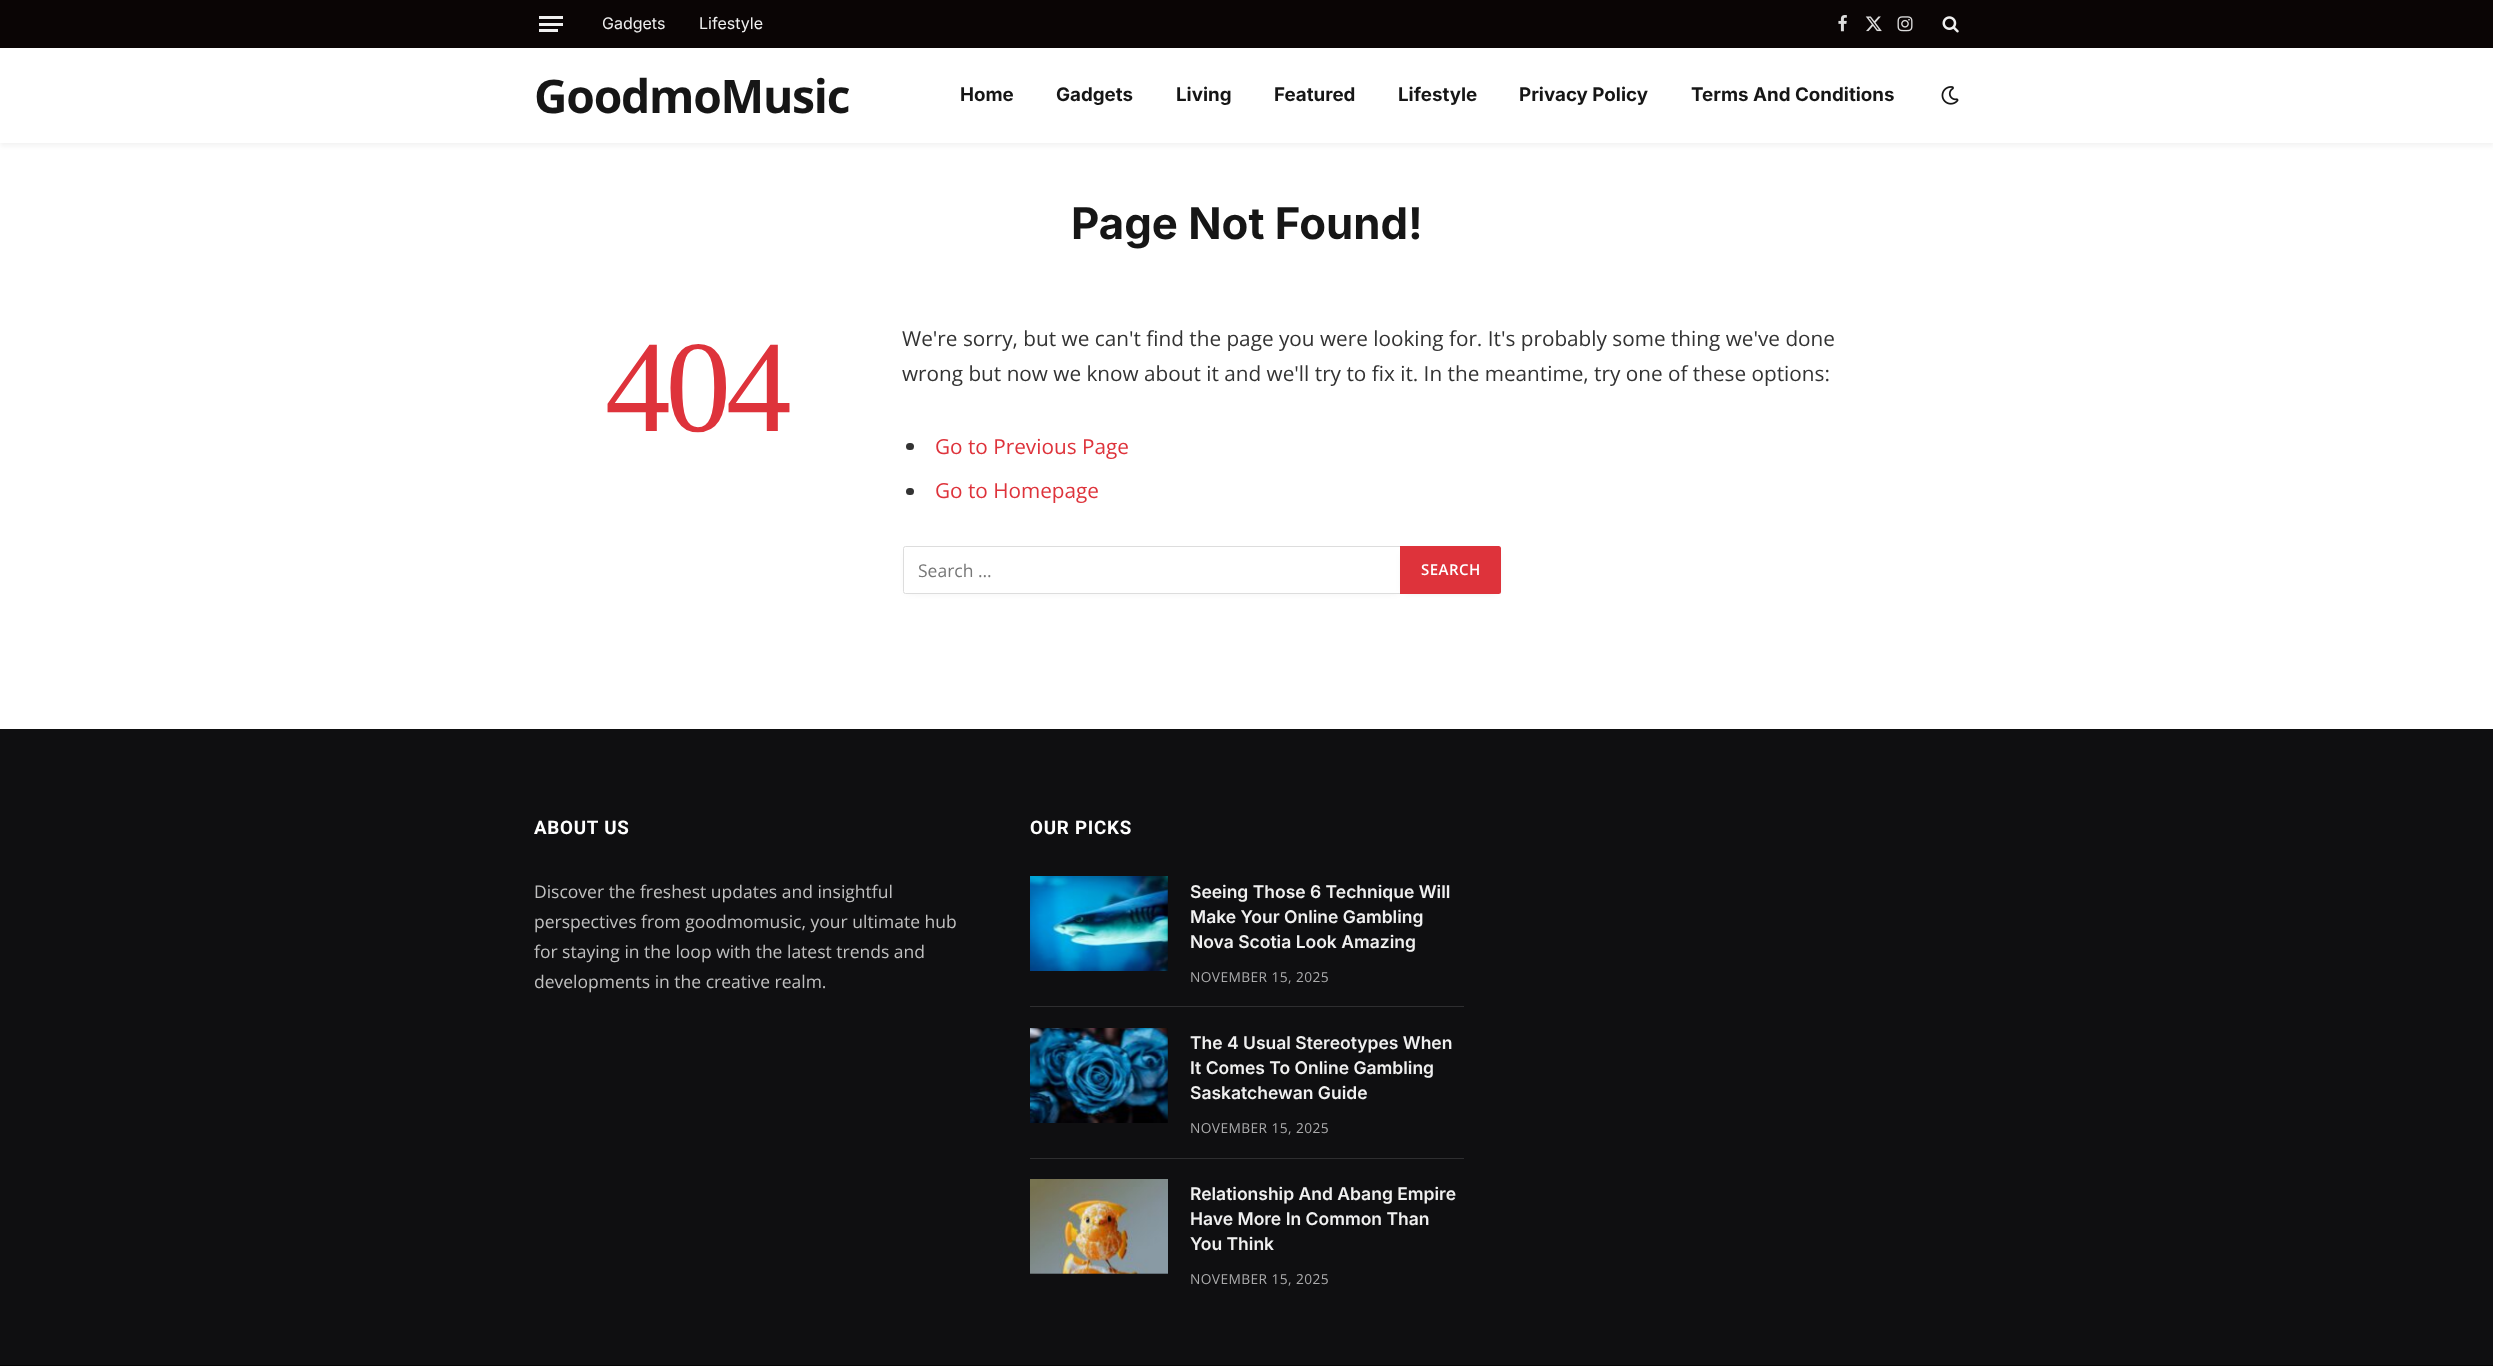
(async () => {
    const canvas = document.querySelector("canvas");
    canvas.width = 2493;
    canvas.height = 1366;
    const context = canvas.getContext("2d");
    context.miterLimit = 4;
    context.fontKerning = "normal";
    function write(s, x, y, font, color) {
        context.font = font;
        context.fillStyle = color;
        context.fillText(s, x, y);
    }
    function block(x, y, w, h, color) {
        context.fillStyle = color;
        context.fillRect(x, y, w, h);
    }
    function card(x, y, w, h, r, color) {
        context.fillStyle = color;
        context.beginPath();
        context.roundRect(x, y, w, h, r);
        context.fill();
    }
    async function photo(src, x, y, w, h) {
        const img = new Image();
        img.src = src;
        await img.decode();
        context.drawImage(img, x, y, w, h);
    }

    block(0, 0, 2493, 1366, "rgb(255, 255, 255)");
    context.save();
    context.beginPath();
    context.moveTo(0, 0);
    context.lineTo(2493, 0);
    context.lineTo(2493, 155);
    context.lineTo(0, 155);
    context.closePath();
    context.moveTo(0, 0);
    context.lineTo(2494, 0);
    context.lineTo(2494, 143);
    context.lineTo(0, 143);
    context.closePath();
    context.clip("evenodd");
    context.fillStyle = "rgba(0, 0, 0, 0.05)";
    context.filter = "blur(2.5px)";
    context.beginPath();
    context.rect(0, 4, 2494, 142);
    context.fill();
    context.filter = "none";
    context.restore();
    block(0, 0, 2493, 48, "rgb(10, 5, 5)");
    block(539, 29, 19, 3, "rgb(240, 240, 240)");
    block(539, 16, 24, 3, "rgb(240, 240, 240)");
    block(539, 23, 24, 3, "rgb(240, 240, 240)");
    write("Gadgets", 602, 29, "16px Inter", "rgb(240, 240, 240)");
    write("Lifestyle", 699, 29, "16px Inter", "rgb(240, 240, 240)");
    await photo("media/1.png", 1838, 15, 9, 17);
    await photo("media/2.png", 1865, 16, 17, 16);
    await photo("media/3.png", 1897, 16, 16, 16);
    await photo("media/4.png", 1942, 16, 17, 17);
    context.letterSpacing = "-1.25px";
    write("GoodmoMusic", 534, 113, "bold 46.25px Open Sans", "rgb(22, 22, 22)");
    context.letterSpacing = "0px";
    write("Home", 960, 101, "bold 18.75px Inter", "rgb(22, 22, 22)");
    write("Gadgets", 1056, 101, "bold 18.75px Inter", "rgb(22, 22, 22)");
    write("Living", 1176, 101, "bold 18.75px Inter", "rgb(22, 22, 22)");
    write("Featured", 1274, 101, "bold 18.75px Inter", "rgb(22, 22, 22)");
    write("Lifestyle", 1398, 101, "bold 18.75px Inter", "rgb(22, 22, 22)");
    write("Privacy Policy", 1519, 101, "bold 18.75px Inter", "rgb(22, 22, 22)");
    write("Terms And Conditions", 1691, 101, "bold 18.75px Inter", "rgb(22, 22, 22)");
    await photo("media/5.png", 1941, 86, 18, 19);
    write("Page Not Found!", 1071, 239, "bold 43.75px Inter", "rgb(22, 22, 22)");
    context.letterSpacing = "-5px";
    write("404", 605, 431, "131px Liberation Serif", "rgb(222, 51, 59)");
    context.letterSpacing = "0px";
    write("We're sorry, but we can't find the page you were looking for. It's probably some thing we've done", 902, 346, "20.75px Open Sans", "rgb(51, 51, 51)");
    write("wrong but now we know about it and we'll try to fix it. In the meantime, try one of these options:", 902, 381, "20.75px Open Sans", "rgb(51, 51, 51)");
    card(906, 443, 8, 7, 3.5, "rgb(51, 51, 51)");
    write("Go to Previous Page", 935, 454, "20.75px Open Sans", "rgb(222, 51, 59)");
    card(906, 488, 8, 7, 3.5, "rgb(51, 51, 51)");
    write("Go to Homepage", 935, 498, "20.75px Open Sans", "rgb(222, 51, 59)");
    context.fillStyle = "rgba(0, 0, 0, 0.1)";
    context.filter = "blur(4.5px)";
    context.beginPath();
    context.rect(908, 554, 490, 37);
    context.fill();
    context.filter = "none";
    context.fillStyle = "rgb(255, 255, 255)";
    context.beginPath();
    context.roundRect(903.5, 546.5, 499, 47, 2);
    context.fill();
    context.strokeStyle = "rgb(221, 221, 221)";
    context.stroke();
    write("Search …", 918, 577, "17.5px Open Sans", "rgb(119, 119, 119)");
    context.fillStyle = "rgba(0, 0, 0, 0.16)";
    context.filter = "blur(4.5px)";
    context.beginPath();
    context.rect(1405, 554, 91, 37);
    context.fill();
    context.filter = "none";
    context.fillStyle = "rgb(222, 51, 59)";
    context.beginPath();
    context.roundRect(1400, 546, 101, 48, [0, 2.5, 2.5, 0]);
    context.fill();
    context.letterSpacing = "0.5px";
    write("SEARCH", 1421, 575, "600 15px Open Sans", "rgb(255, 255, 255)");
    block(0, 729, 2493, 636, "rgb(15, 15, 17)");
    context.letterSpacing = "0.75px";
    write("ABOUT US", 534, 834, "bold 18.75px Roboto", "rgb(255, 255, 255)");
    context.letterSpacing = "0px";
    write("Discover the freshest updates and insightful", 534, 898, "17.5px Open Sans", "rgb(192, 192, 192)");
    write("perspectives from goodmomusic, your ultimate hub", 534, 928, "17.5px Open Sans", "rgb(192, 192, 192)");
    write("for staying in the loop with the latest trends and", 534, 958, "17.5px Open Sans", "rgb(192, 192, 192)");
    write("developments in the creative realm.", 534, 988, "17.5px Open Sans", "rgb(192, 192, 192)");
    context.letterSpacing = "0.75px";
    write("OUR PICKS", 1030, 834, "bold 18.75px Roboto", "rgb(255, 255, 255)");
    await photo("media/6.png", 1030, 876, 138, 95);
    context.letterSpacing = "0px";
    write("Seeing Those 6 Technique Will", 1190, 898, "600 17.5px Inter", "rgb(240, 240, 240)");
    write("Make Your Online Gambling", 1190, 923, "600 17.5px Inter", "rgb(240, 240, 240)");
    write("Nova Scotia Look Amazing", 1190, 948, "600 17.5px Inter", "rgb(240, 240, 240)");
    context.letterSpacing = "0.4px";
    write("NOVEMBER 15, 2025", 1190, 982, "13.75px Open Sans", "rgb(171, 171, 172)");
    block(1030, 1006, 434, 1, "rgb(46, 46, 48)");
    await photo("media/7.png", 1030, 1028, 138, 95);
    context.letterSpacing = "0px";
    write("The 4 Usual Stereotypes When", 1190, 1049, "600 17.5px Inter", "rgb(240, 240, 240)");
    write("It Comes To Online Gambling", 1190, 1074, "600 17.5px Inter", "rgb(240, 240, 240)");
    write("Saskatchewan Guide", 1190, 1099, "600 17.5px Inter", "rgb(240, 240, 240)");
    context.letterSpacing = "0.4px";
    write("NOVEMBER 15, 2025", 1190, 1133, "13.75px Open Sans", "rgb(171, 171, 172)");
    block(1030, 1158, 434, 1, "rgb(46, 46, 48)");
    await photo("media/8.png", 1030, 1179, 138, 95);
    context.letterSpacing = "0px";
    write("Relationship And Abang Empire", 1190, 1200, "600 17.5px Inter", "rgb(240, 240, 240)");
    write("Have More In Common Than", 1190, 1225, "600 17.5px Inter", "rgb(240, 240, 240)");
    write("You Think", 1190, 1250, "600 17.5px Inter", "rgb(240, 240, 240)");
    context.letterSpacing = "0.4px";
    write("NOVEMBER 15, 2025", 1190, 1284, "13.75px Open Sans", "rgb(171, 171, 172)");
    block(0, 1365, 2493, 1, "rgb(4, 4, 4)");
})();
